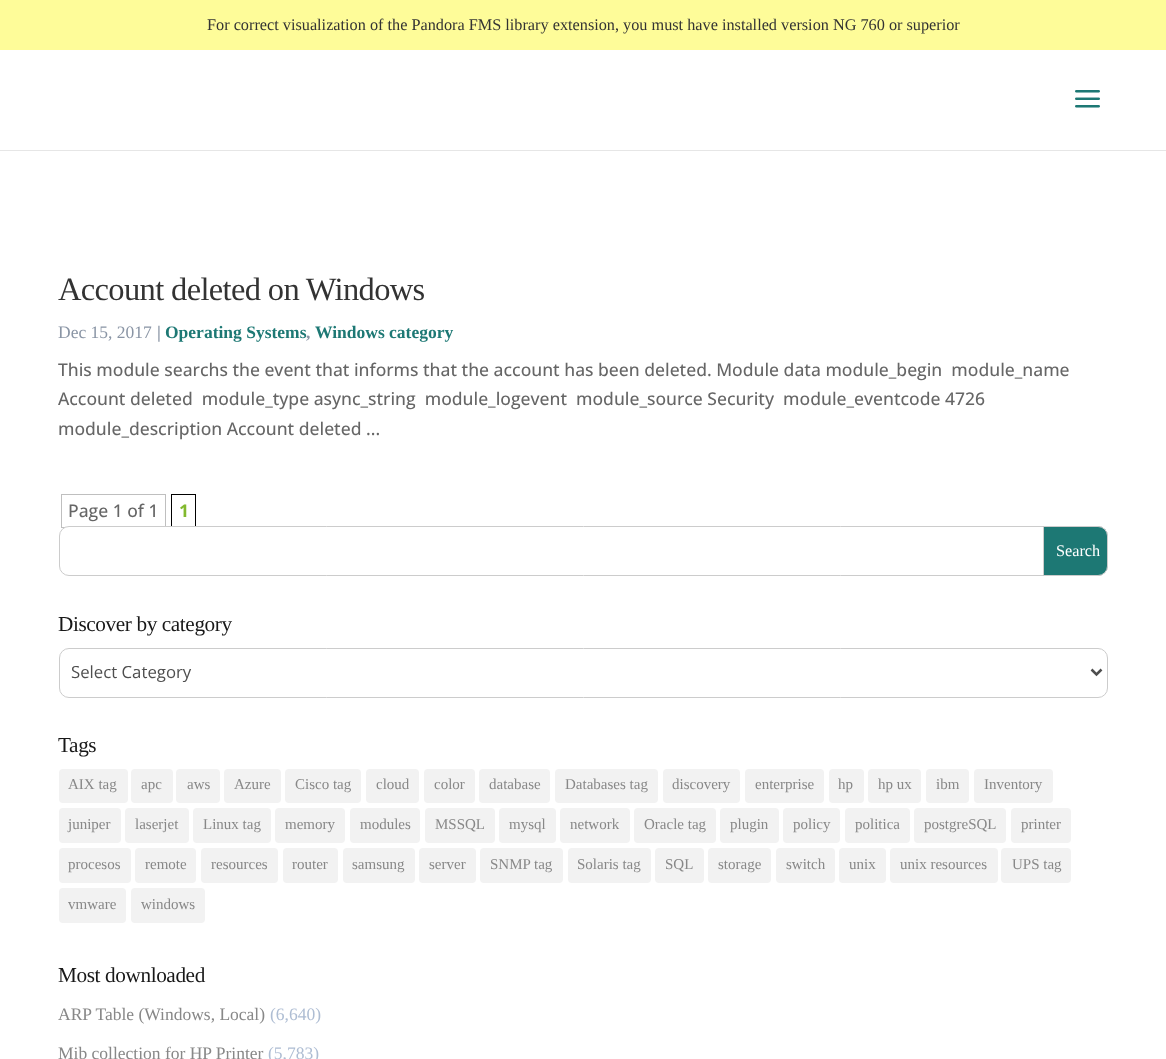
(async () => {
    const canvas = document.querySelector("canvas");
    canvas.width = 1166;
    canvas.height = 1059;
    const context = canvas.getContext("2d");
    context.miterLimit = 4;
    context.fontKerning = "normal";
    function write(s, x, y, font, color) {
        context.font = font;
        context.fillStyle = color;
        context.fillText(s, x, y);
    }
    function block(x, y, w, h, color) {
        context.fillStyle = color;
        context.fillRect(x, y, w, h);
    }
    function card(x, y, w, h, r, color) {
        context.fillStyle = color;
        context.beginPath();
        context.roundRect(x, y, w, h, r);
        context.fill();
    }
    async function photo(src, x, y, w, h) {
        const img = new Image();
        img.src = src;
        await img.decode();
        context.drawImage(img, x, y, w, h);
    }

    block(0, 0, 1166, 1059, "rgb(255, 255, 255)");
    block(0, 0, 1166, 50, "rgb(254, 252, 153)");
    write("For correct visualization of the Pandora FMS library extension, you must have installed version NG 760 or superior", 207, 30, "16.25px Liberation Serif", "rgb(51, 51, 51)");
    block(0, 150, 1166, 1, "rgb(230, 230, 230)");
    await photo("media/1.png", 1075, 90, 25, 18);
    context.letterSpacing = "-0.65px";
    write("Account deleted on Windows", 58, 300, "32.5px Liberation Serif", "rgb(51, 51, 51)");
    context.letterSpacing = "0px";
    write("Dec 15, 2017", 58, 338, "17.5px Liberation Serif", "rgb(138, 149, 165)");
    write("|", 157, 338, "bold 17.5px Liberation Serif", "rgb(138, 149, 165)");
    write("Operating Systems", 165, 338, "bold 17.5px Liberation Serif", "rgb(29, 120, 116)");
    write(",", 306, 338, "bold 17.5px Liberation Serif", "rgb(138, 149, 165)");
    write("Windows category", 315, 338, "bold 17.5px Liberation Serif", "rgb(29, 120, 116)");
    write("This module searchs the event that informs that the account has been deleted. Module data module_begin  module_name", 58, 376, "500 17.5px Open Sans", "rgb(102, 102, 102)");
    write("Account deleted  module_type async_string  module_logevent  module_source Security  module_eventcode 4726", 58, 405, "500 17.5px Open Sans", "rgb(102, 102, 102)");
    write("module_description Account deleted ...", 58, 435, "500 17.5px Open Sans", "rgb(102, 102, 102)");
    context.strokeStyle = "rgb(191, 191, 191)";
    context.strokeRect(61.5, 494.5, 104, 33);
    write("Page 1 of 1", 68, 517, "500 17.5px Open Sans", "rgb(102, 102, 102)");
    context.strokeStyle = "rgb(0, 0, 0)";
    context.strokeRect(171.5, 494.5, 24, 33);
    write("1", 179, 517, "bold 17.5px Open Sans", "rgb(130, 185, 46)");
    context.fillStyle = "rgb(255, 255, 255)";
    context.beginPath();
    context.roundRect(59.5, 526.5, 1048, 49, 9.5);
    context.fill();
    context.strokeStyle = "rgb(204, 204, 204)";
    context.stroke();
    context.fillStyle = "rgb(29, 120, 116)";
    context.beginPath();
    context.roundRect(1043.5, 526.5, 64, 49, [0, 9.5, 9.5, 0]);
    context.fill();
    context.stroke();
    write("Search", 1056, 556, "16.25px Liberation Serif", "rgb(255, 255, 255)");
    context.letterSpacing = "-0.4px";
    write("Discover by category", 58, 631, "21.25px Liberation Serif", "rgb(24, 24, 24)");
    context.beginPath();
    context.roundRect(59.5, 648.5, 1048, 49, 9.5);
    context.stroke();
    context.beginPath();
    context.moveTo(1091.5, 669.5);
    context.lineTo(1096.5, 674.5);
    context.lineTo(1101.5, 669.5);
    context.strokeStyle = "rgb(78, 78, 78)";
    context.lineWidth = 2.5;
    context.stroke();
    context.letterSpacing = "0px";
    write("Select Category", 71, 678, "16.75px Open Sans", "rgb(78, 78, 78)");
    context.letterSpacing = "-0.4px";
    write("Tags", 58, 752, "21.25px Liberation Serif", "rgb(24, 24, 24)");
    card(59, 769, 69, 34, 4, "rgb(242, 242, 242)");
    context.letterSpacing = "0px";
    write("AIX tag", 68, 789, "15px Liberation Serif", "rgb(136, 136, 136)");
    card(131, 769, 42, 34, 4, "rgb(242, 242, 242)");
    write("apc", 141, 789, "15px Liberation Serif", "rgb(136, 136, 136)");
    card(176, 769, 44, 34, 4, "rgb(242, 242, 242)");
    write("aws", 187, 789, "15px Liberation Serif", "rgb(136, 136, 136)");
    card(224, 769, 57, 34, 4, "rgb(242, 242, 242)");
    write("Azure", 234, 789, "15px Liberation Serif", "rgb(136, 136, 136)");
    card(285, 769, 76, 34, 4, "rgb(242, 242, 242)");
    write("Cisco tag", 295, 789, "15px Liberation Serif", "rgb(136, 136, 136)");
    card(366, 769, 53, 34, 4, "rgb(242, 242, 242)");
    write("cloud", 376, 789, "15px Liberation Serif", "rgb(136, 136, 136)");
    card(424, 769, 51, 34, 4, "rgb(242, 242, 242)");
    write("color", 434, 789, "15px Liberation Serif", "rgb(136, 136, 136)");
    card(479, 769, 71, 34, 4, "rgb(242, 242, 242)");
    write("database", 489, 789, "15px Liberation Serif", "rgb(136, 136, 136)");
    card(555, 769, 103, 34, 4, "rgb(242, 242, 242)");
    write("Databases tag", 565, 789, "15px Liberation Serif", "rgb(136, 136, 136)");
    card(663, 769, 77, 34, 4, "rgb(242, 242, 242)");
    write("discovery", 672, 789, "15px Liberation Serif", "rgb(136, 136, 136)");
    card(745, 769, 79, 34, 4, "rgb(242, 242, 242)");
    write("enterprise", 755, 789, "15px Liberation Serif", "rgb(136, 136, 136)");
    card(829, 769, 35, 34, 4, "rgb(242, 242, 242)");
    write("hp", 838, 789, "15px Liberation Serif", "rgb(136, 136, 136)");
    card(868, 769, 53, 34, 4, "rgb(242, 242, 242)");
    write("hp ux", 878, 789, "15px Liberation Serif", "rgb(136, 136, 136)");
    card(926, 769, 43, 34, 4, "rgb(242, 242, 242)");
    write("ibm", 936, 789, "15px Liberation Serif", "rgb(136, 136, 136)");
    card(974, 769, 79, 34, 4, "rgb(242, 242, 242)");
    write("Inventory", 984, 789, "15px Liberation Serif", "rgb(136, 136, 136)");
    card(59, 808, 62, 35, 4, "rgb(242, 242, 242)");
    write("juniper", 68, 829, "15px Liberation Serif", "rgb(136, 136, 136)");
    card(125, 808, 64, 35, 4, "rgb(242, 242, 242)");
    write("laserjet", 135, 829, "15px Liberation Serif", "rgb(136, 136, 136)");
    card(193, 808, 78, 35, 4, "rgb(242, 242, 242)");
    write("Linux tag", 203, 829, "15px Liberation Serif", "rgb(136, 136, 136)");
    card(275, 808, 70, 35, 4, "rgb(242, 242, 242)");
    write("memory", 285, 829, "15px Liberation Serif", "rgb(136, 136, 136)");
    card(350, 808, 70, 35, 4, "rgb(242, 242, 242)");
    write("modules", 360, 829, "15px Liberation Serif", "rgb(136, 136, 136)");
    card(425, 808, 70, 35, 4, "rgb(242, 242, 242)");
    write("MSSQL", 435, 829, "15px Liberation Serif", "rgb(136, 136, 136)");
    card(499, 808, 57, 35, 4, "rgb(242, 242, 242)");
    write("mysql", 509, 829, "15px Liberation Serif", "rgb(136, 136, 136)");
    card(560, 808, 70, 35, 4, "rgb(242, 242, 242)");
    write("network", 570, 829, "15px Liberation Serif", "rgb(136, 136, 136)");
    card(634, 808, 82, 35, 4, "rgb(242, 242, 242)");
    write("Oracle tag", 644, 829, "15px Liberation Serif", "rgb(136, 136, 136)");
    card(720, 808, 59, 35, 4, "rgb(242, 242, 242)");
    write("plugin", 730, 829, "15px Liberation Serif", "rgb(136, 136, 136)");
    card(783, 808, 57, 35, 4, "rgb(242, 242, 242)");
    write("policy", 793, 829, "15px Liberation Serif", "rgb(136, 136, 136)");
    card(845, 808, 65, 35, 4, "rgb(242, 242, 242)");
    write("politica", 855, 829, "15px Liberation Serif", "rgb(136, 136, 136)");
    card(914, 808, 92, 35, 4, "rgb(242, 242, 242)");
    write("postgreSQL", 924, 829, "15px Liberation Serif", "rgb(136, 136, 136)");
    card(1011, 808, 60, 35, 4, "rgb(242, 242, 242)");
    write("printer", 1021, 829, "15px Liberation Serif", "rgb(136, 136, 136)");
    card(59, 848, 72, 35, 4, "rgb(242, 242, 242)");
    write("procesos", 68, 869, "15px Liberation Serif", "rgb(136, 136, 136)");
    card(135, 848, 61, 35, 4, "rgb(242, 242, 242)");
    write("remote", 145, 869, "15px Liberation Serif", "rgb(136, 136, 136)");
    card(201, 848, 77, 35, 4, "rgb(242, 242, 242)");
    write("resources", 211, 869, "15px Liberation Serif", "rgb(136, 136, 136)");
    card(283, 848, 55, 35, 4, "rgb(242, 242, 242)");
    write("router", 292, 869, "15px Liberation Serif", "rgb(136, 136, 136)");
    card(343, 848, 72, 35, 4, "rgb(242, 242, 242)");
    write("samsung", 352, 869, "15px Liberation Serif", "rgb(136, 136, 136)");
    card(419, 848, 57, 35, 4, "rgb(242, 242, 242)");
    write("server", 429, 869, "15px Liberation Serif", "rgb(136, 136, 136)");
    card(480, 848, 83, 35, 4, "rgb(242, 242, 242)");
    write("SNMP tag", 490, 869, "15px Liberation Serif", "rgb(136, 136, 136)");
    card(568, 848, 83, 35, 4, "rgb(242, 242, 242)");
    write("Solaris tag", 577, 869, "15px Liberation Serif", "rgb(136, 136, 136)");
    card(655, 848, 49, 35, 4, "rgb(242, 242, 242)");
    write("SQL", 665, 869, "15px Liberation Serif", "rgb(136, 136, 136)");
    card(708, 848, 63, 35, 4, "rgb(242, 242, 242)");
    write("storage", 718, 869, "15px Liberation Serif", "rgb(136, 136, 136)");
    card(776, 848, 59, 35, 4, "rgb(242, 242, 242)");
    write("switch", 786, 869, "15px Liberation Serif", "rgb(136, 136, 136)");
    card(839, 848, 47, 35, 4, "rgb(242, 242, 242)");
    write("unix", 849, 869, "15px Liberation Serif", "rgb(136, 136, 136)");
    card(890, 848, 108, 35, 4, "rgb(242, 242, 242)");
    write("unix resources", 900, 869, "15px Liberation Serif", "rgb(136, 136, 136)");
    card(1001, 848, 70, 35, 4, "rgb(242, 242, 242)");
    write("UPS tag", 1012, 869, "15px Liberation Serif", "rgb(136, 136, 136)");
    card(59, 888, 67, 35, 4, "rgb(242, 242, 242)");
    write("vmware", 68, 909, "15px Liberation Serif", "rgb(136, 136, 136)");
    card(131, 888, 74, 35, 4, "rgb(242, 242, 242)");
    write("windows", 141, 909, "15px Liberation Serif", "rgb(136, 136, 136)");
    context.letterSpacing = "-0.4px";
    write("Most downloaded", 58, 982, "21.25px Liberation Serif", "rgb(24, 24, 24)");
    context.letterSpacing = "0px";
    write("ARP Table (Windows, Local)", 58, 1020, "17.5px Liberation Serif", "rgb(136, 136, 136)");
    write("(6,640)", 270, 1020, "17.5px Liberation Serif", "rgb(174, 189, 211)");
    write("Mib collection for HP Printer", 58, 1059, "17.5px Liberation Serif", "rgb(136, 136, 136)");
    write("(5,783)", 268, 1059, "17.5px Liberation Serif", "rgb(174, 189, 211)");
})();
